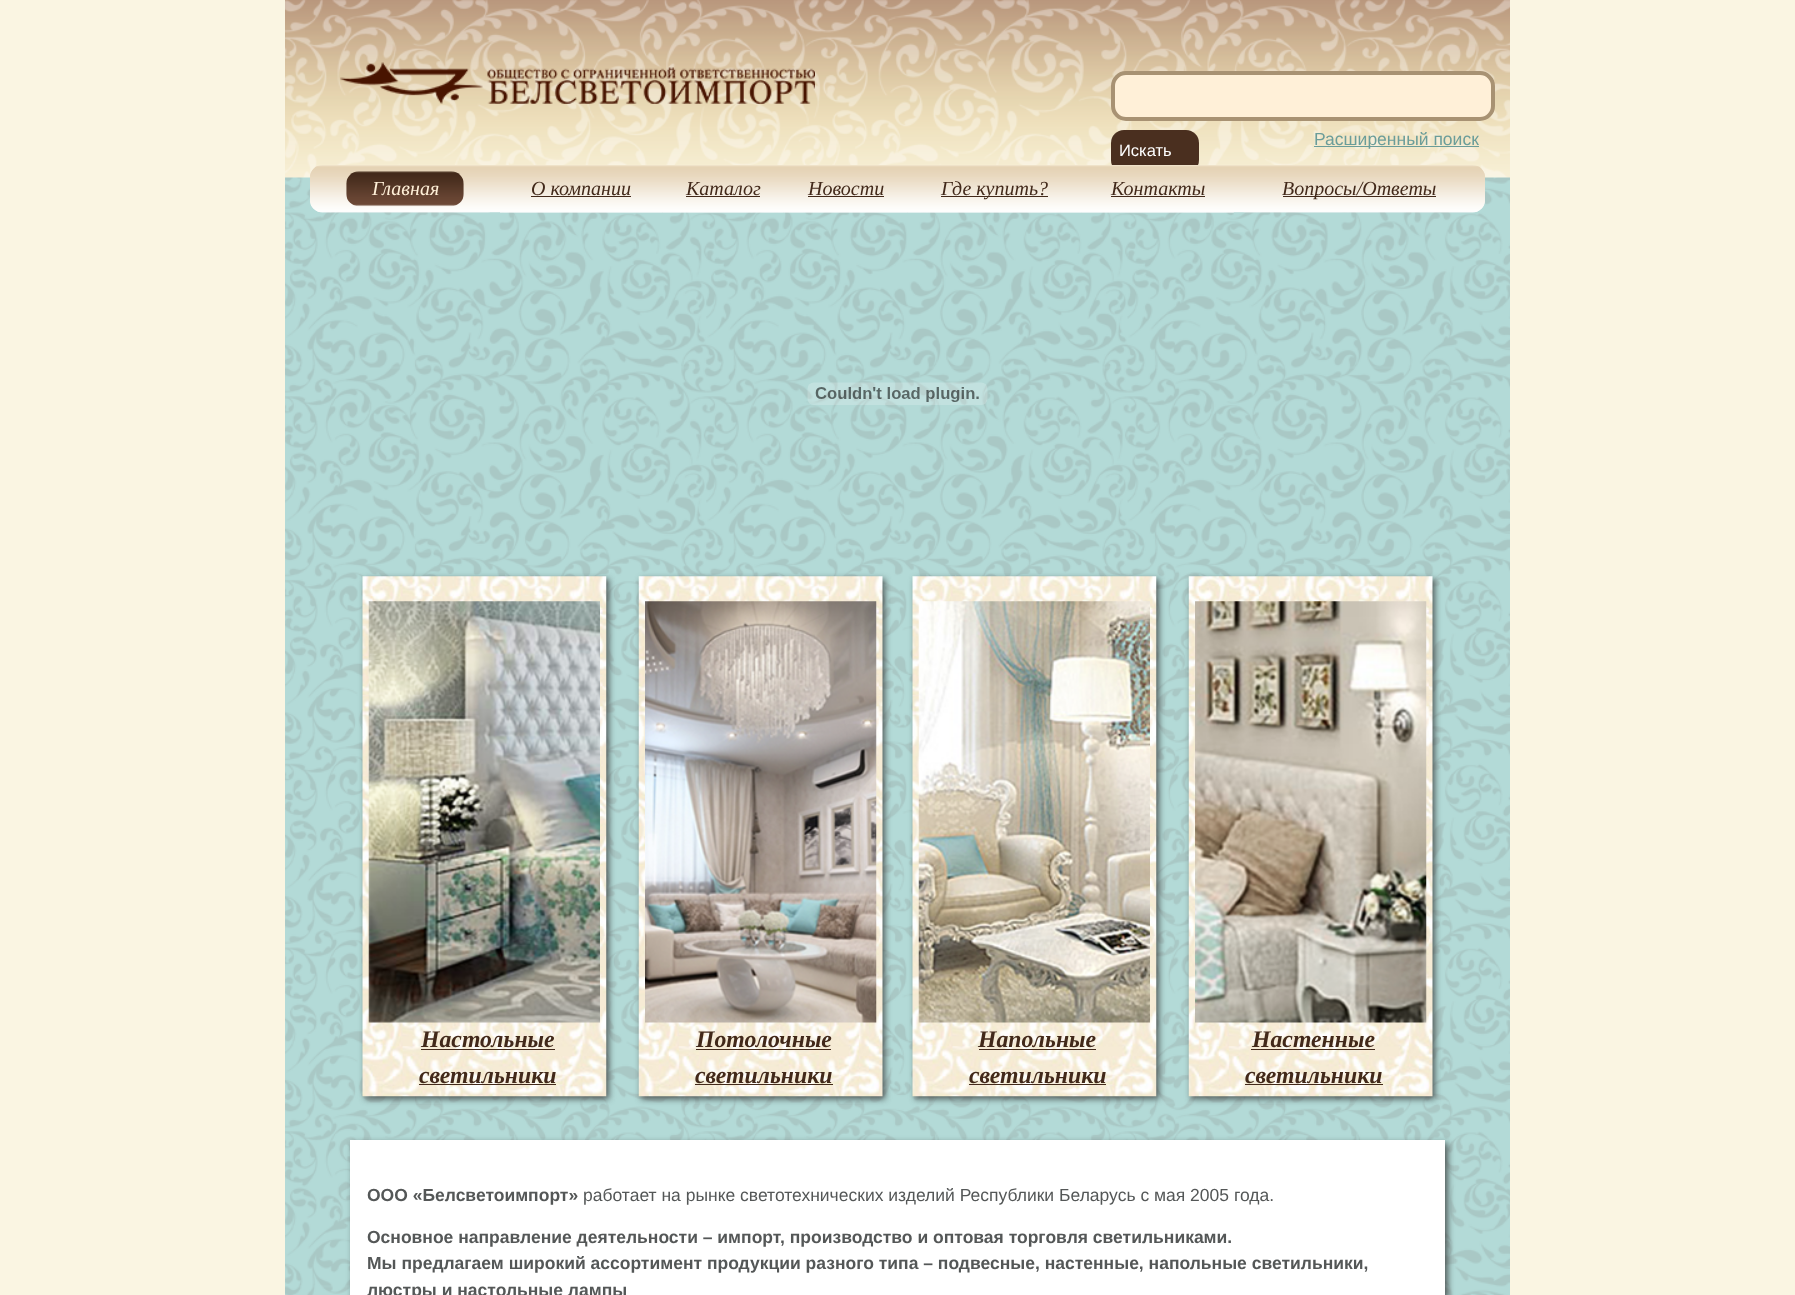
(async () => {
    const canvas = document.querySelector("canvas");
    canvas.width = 1795;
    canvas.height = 1295;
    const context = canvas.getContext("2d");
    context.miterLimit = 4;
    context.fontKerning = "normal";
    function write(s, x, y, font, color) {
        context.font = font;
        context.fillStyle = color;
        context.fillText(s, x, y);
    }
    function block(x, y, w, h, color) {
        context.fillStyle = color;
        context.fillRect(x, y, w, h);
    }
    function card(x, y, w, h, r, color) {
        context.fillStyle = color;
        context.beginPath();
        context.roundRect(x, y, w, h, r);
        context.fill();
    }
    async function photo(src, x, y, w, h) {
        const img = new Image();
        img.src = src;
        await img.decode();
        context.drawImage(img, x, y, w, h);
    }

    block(0, 0, 1795, 1295, "rgb(250, 245, 226)");
    await photo("media/1.png", 285, 177, 1225, 1118);
    await photo("media/2.png", 285, 0, 1225, 178);
    await photo("media/3.png", 340, 62, 475, 42);
    block(1314, 146, 165, 1, "rgb(107, 157, 153)");
    write("Расширенный поиск", 1314, 145, "17.5px Liberation Sans", "rgb(107, 157, 153)");
    context.fillStyle = "rgb(255, 240, 216)";
    context.beginPath();
    context.roundRect(1113, 73, 380, 46, 13);
    context.fill();
    context.strokeStyle = "rgb(168, 146, 115)";
    context.lineWidth = 4;
    context.stroke();
    card(1111, 130, 88, 43, 13, "rgb(74, 47, 31)");
    write("Искать", 1119, 156, "16.5px Liberation Sans", "rgb(255, 255, 255)");
    await photo("media/4.png", 310, 165, 1175, 48);
    await photo("media/5.png", 310, 166, 180, 47);
    await photo("media/6.png", 346, 171, 118, 36);
    write("Главная", 372, 195, "italic 20px Liberation Serif", "rgb(255, 240, 216)");
    await photo("media/7.png", 500, 212, 163, 1);
    write("О компании", 531, 195, "italic 20px Liberation Serif", "rgb(66, 41, 26)");
    block(531, 196, 100, 1, "rgb(66, 41, 26)");
    await photo("media/8.png", 662, 212, 122, 1);
    write("Каталог", 686, 195, "italic 20px Liberation Serif", "rgb(66, 41, 26)");
    block(686, 196, 74, 1, "rgb(66, 41, 26)");
    await photo("media/9.png", 783, 212, 125, 1);
    write("Новости", 808, 195, "italic 20px Liberation Serif", "rgb(66, 41, 26)");
    block(808, 196, 76, 1, "rgb(66, 41, 26)");
    await photo("media/10.png", 907, 212, 175, 1);
    block(941, 196, 107, 1, "rgb(66, 41, 26)");
    write("Где купить?", 941, 195, "italic 20px Liberation Serif", "rgb(66, 41, 26)");
    await photo("media/11.png", 1081, 212, 153, 1);
    write("Контакты", 1111, 195, "italic 20px Liberation Serif", "rgb(66, 41, 26)");
    block(1111, 196, 94, 1, "rgb(66, 41, 26)");
    await photo("media/12.png", 1243, 166, 242, 47);
    block(1283, 196, 153, 1, "rgb(66, 41, 26)");
    write("Вопросы/Ответы", 1282, 195, "italic 20px Liberation Serif", "rgb(66, 41, 26)");
    await photo("media/13.png", 807, 382, 181, 23);
    context.fillStyle = "rgba(50, 50, 50, 0.75)";
    context.filter = "blur(3px)";
    context.beginPath();
    context.rect(365, 579, 244, 520);
    context.fill();
    context.filter = "none";
    await photo("media/14.png", 362, 576, 245, 521);
    await photo("media/15.png", 368, 601, 232, 422);
    write("Настольные", 421, 1047, "italic bold 23.75px Liberation Serif", "rgb(66, 41, 26)");
    block(421, 1049, 134, 1, "rgb(66, 41, 26)");
    write("светильники", 419, 1083, "italic bold 23.75px Liberation Serif", "rgb(66, 41, 26)");
    block(419, 1084, 137, 1, "rgb(66, 41, 26)");
    context.fillStyle = "rgba(50, 50, 50, 0.75)";
    context.filter = "blur(3px)";
    context.beginPath();
    context.rect(641, 579, 244, 520);
    context.fill();
    context.filter = "none";
    await photo("media/16.png", 638, 576, 245, 521);
    await photo("media/17.png", 645, 601, 232, 422);
    write("Потолочные", 696, 1047, "italic bold 23.75px Liberation Serif", "rgb(66, 41, 26)");
    block(696, 1049, 135, 1, "rgb(66, 41, 26)");
    write("светильники", 695, 1083, "italic bold 23.75px Liberation Serif", "rgb(66, 41, 26)");
    block(695, 1084, 138, 1, "rgb(66, 41, 26)");
    context.fillStyle = "rgba(50, 50, 50, 0.75)";
    context.filter = "blur(3px)";
    context.beginPath();
    context.rect(915, 579, 244, 520);
    context.fill();
    context.filter = "none";
    await photo("media/18.png", 912, 576, 245, 521);
    await photo("media/19.png", 918, 601, 232, 422);
    write("Напольные", 978, 1047, "italic bold 23.75px Liberation Serif", "rgb(66, 41, 26)");
    block(979, 1049, 117, 1, "rgb(66, 41, 26)");
    write("светильники", 969, 1083, "italic bold 23.75px Liberation Serif", "rgb(66, 41, 26)");
    block(969, 1084, 137, 1, "rgb(66, 41, 26)");
    context.fillStyle = "rgba(50, 50, 50, 0.75)";
    context.filter = "blur(3px)";
    context.beginPath();
    context.rect(1191, 579, 244, 520);
    context.fill();
    context.filter = "none";
    await photo("media/20.png", 1188, 576, 245, 521);
    await photo("media/21.png", 1195, 601, 232, 422);
    write("Настенные", 1252, 1047, "italic bold 23.75px Liberation Serif", "rgb(66, 41, 26)");
    block(1251, 1049, 124, 1, "rgb(66, 41, 26)");
    write("светильники", 1245, 1083, "italic bold 23.75px Liberation Serif", "rgb(66, 41, 26)");
    block(1245, 1084, 138, 1, "rgb(66, 41, 26)");
    context.fillStyle = "rgba(50, 50, 50, 0.75)";
    context.filter = "blur(3px)";
    context.beginPath();
    context.rect(353, 1143, 1095, 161);
    context.fill();
    context.filter = "none";
    block(350, 1140, 1095, 155, "rgb(255, 255, 255)");
    write("ООО «Белсветоимпорт»", 367, 1201, "bold 17.5px Liberation Sans", "rgb(84, 87, 87)");
    write("работает на рынке светотехнических изделий Республики Беларусь с мая 2005 года.", 583, 1201, "17.5px Liberation Sans", "rgb(84, 87, 87)");
    write("Основное направление деятельности – импорт, производство и оптовая торговля светильниками.", 367, 1243, "bold 17.5px Liberation Sans", "rgb(84, 87, 87)");
    write("Мы предлагаем широкий ассортимент продукции разного типа – подвесные, настенные, напольные светильники,", 367, 1269, "bold 17.5px Liberation Sans", "rgb(84, 87, 87)");
    write("люстры и настольные лампы", 367, 1296, "bold 17.5px Liberation Sans", "rgb(84, 87, 87)");
})();
